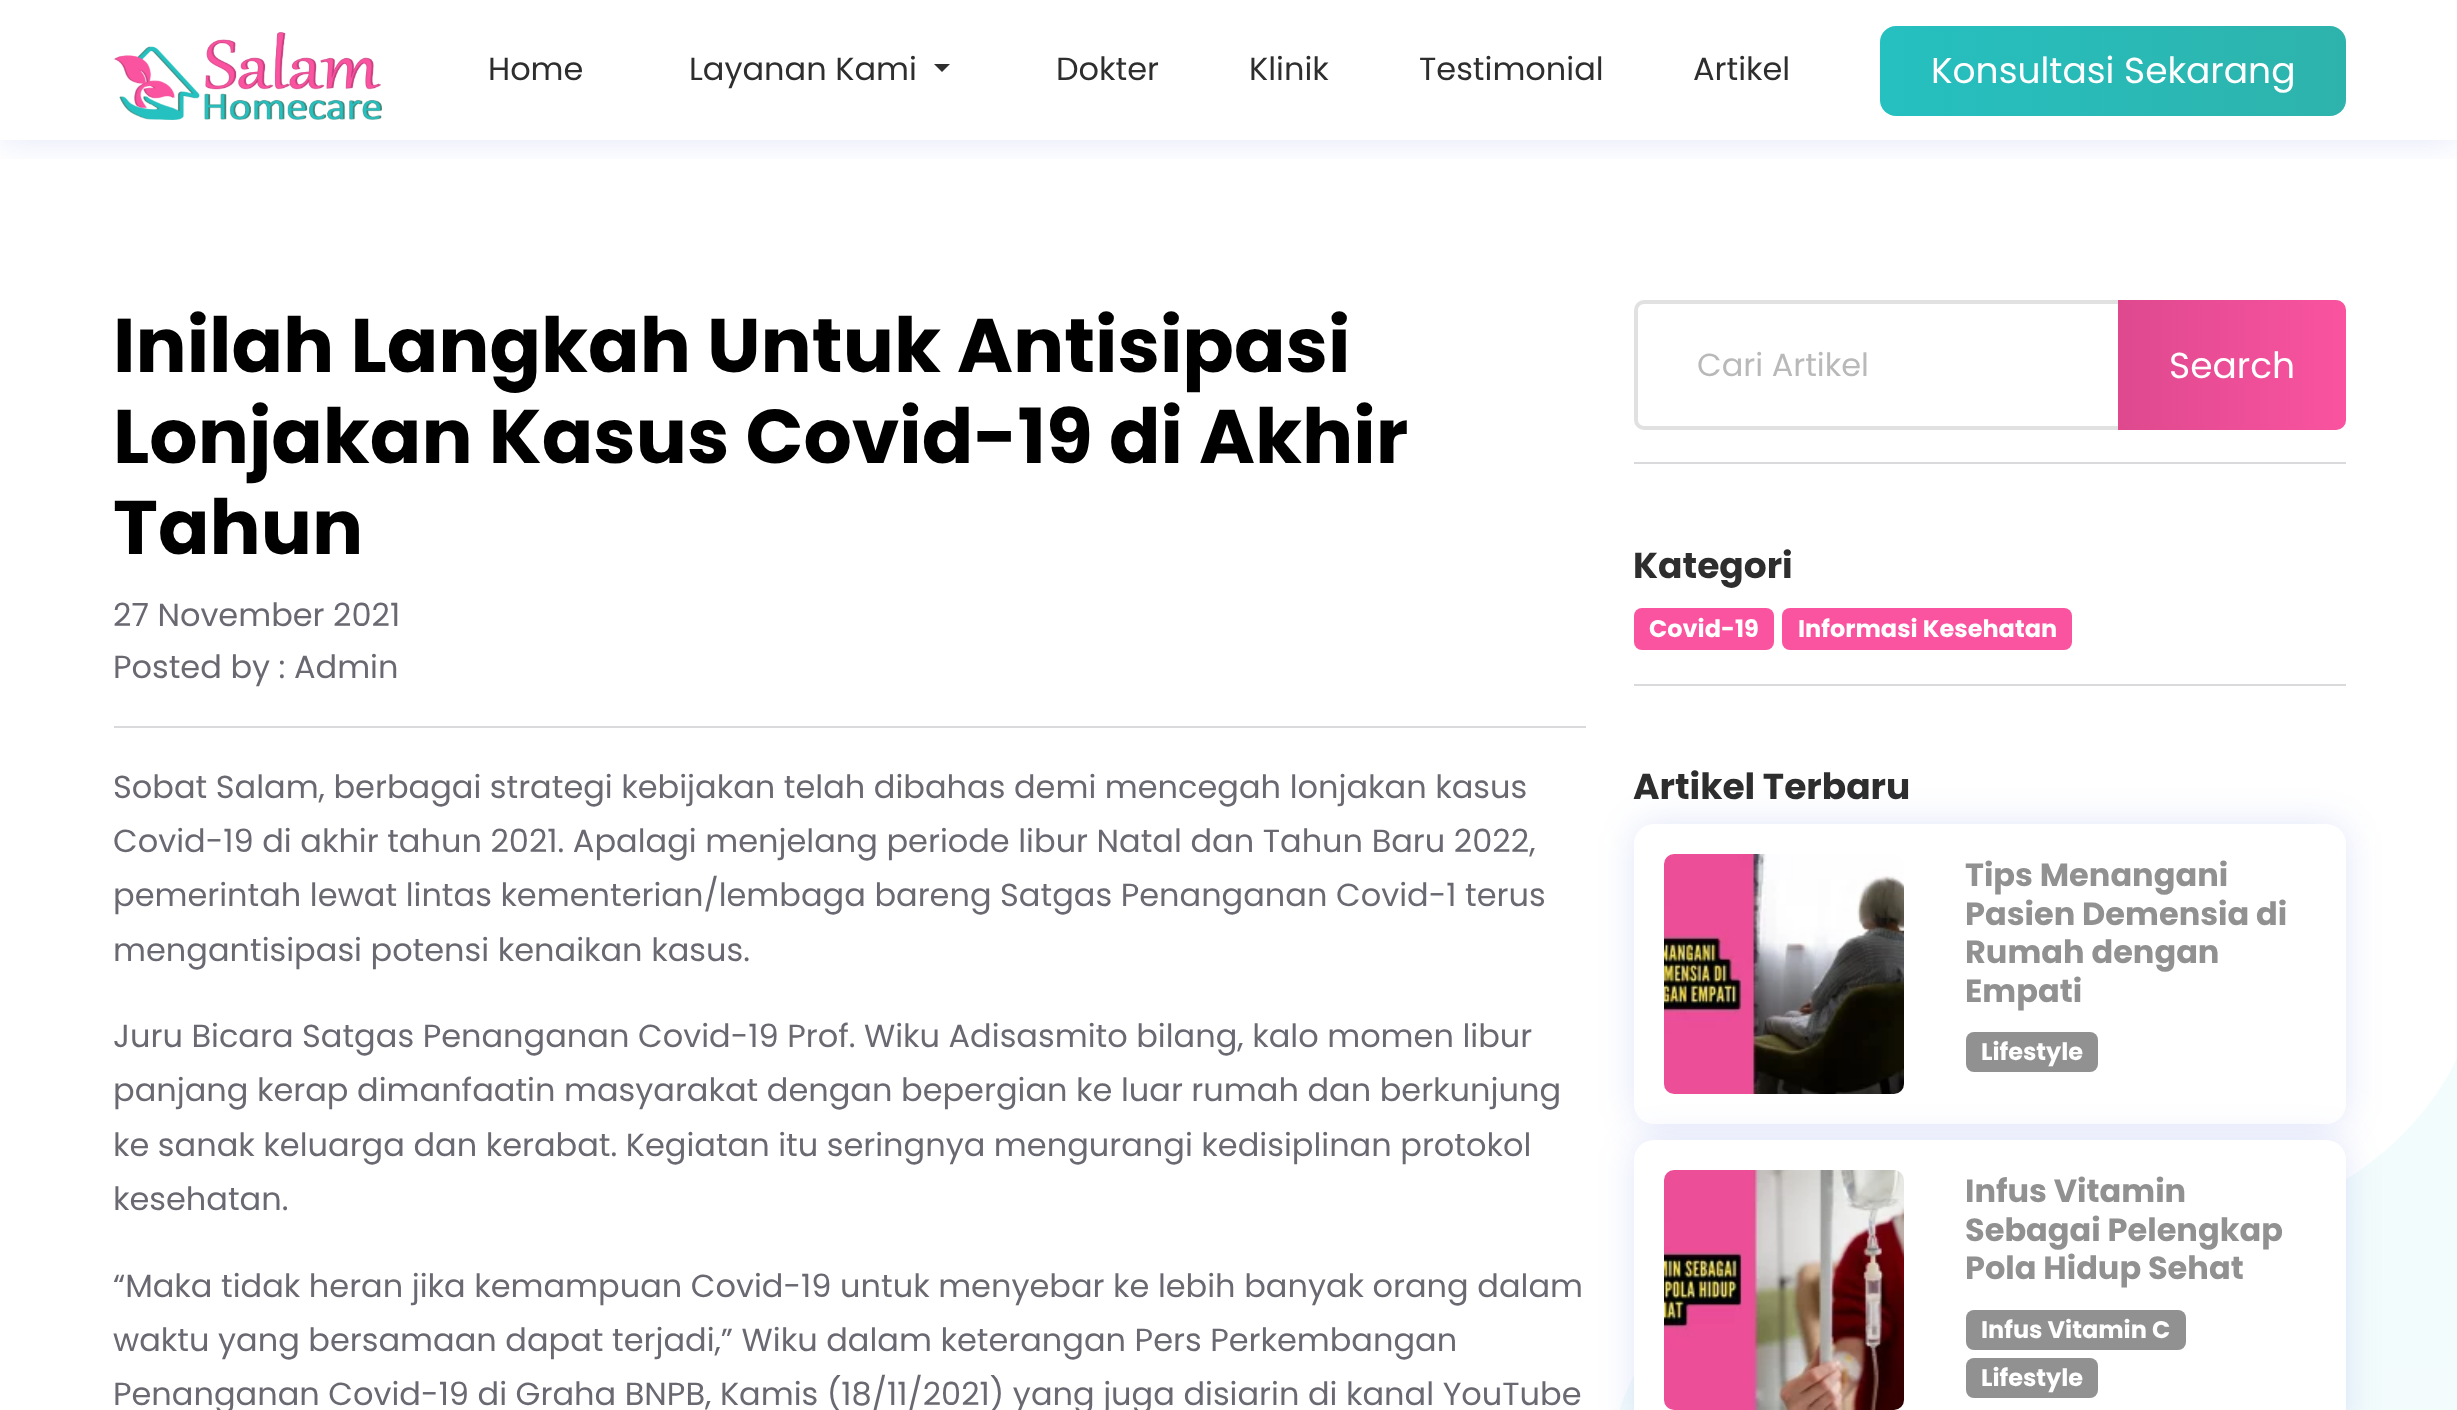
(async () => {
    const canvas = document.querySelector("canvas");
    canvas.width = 2457;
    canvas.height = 1410;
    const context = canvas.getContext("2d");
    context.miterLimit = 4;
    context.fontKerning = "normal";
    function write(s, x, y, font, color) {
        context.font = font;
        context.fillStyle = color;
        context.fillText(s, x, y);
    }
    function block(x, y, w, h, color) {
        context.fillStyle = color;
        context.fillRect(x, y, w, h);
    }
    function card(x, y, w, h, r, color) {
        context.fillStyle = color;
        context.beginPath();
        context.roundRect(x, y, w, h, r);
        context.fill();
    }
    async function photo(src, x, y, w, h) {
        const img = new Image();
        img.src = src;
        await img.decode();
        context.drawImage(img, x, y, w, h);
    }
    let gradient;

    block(0, 0, 2457, 1410, "rgb(255, 255, 255)");
    context.save();
    context.beginPath();
    context.rect(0, 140, 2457, 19);
    context.clip();
    context.fillStyle = "rgba(50, 77, 215, 0.14)";
    context.filter = "blur(18px)";
    context.beginPath();
    context.rect(0, 0, 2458, 140);
    context.fill();
    context.filter = "none";
    context.restore();
    await photo("media/1.png", 114, 32, 268, 88);
    write("Home", 488, 80, "32px Poppins", "rgb(46, 46, 46)");
    write("Layanan Kami", 689, 80, "32px Poppins", "rgb(46, 46, 46)");
    context.beginPath();
    context.moveTo(934, 64);
    context.lineTo(950, 64);
    context.lineTo(942, 72);
    context.closePath();
    context.fill();
    write("Dokter", 1056, 80, "32px Poppins", "rgb(46, 46, 46)");
    write("Klinik", 1249, 80, "32px Poppins", "rgb(46, 46, 46)");
    write("Testimonial", 1419, 80, "32px Poppins", "rgb(46, 46, 46)");
    write("Artikel", 1693, 80, "32px Poppins", "rgb(46, 46, 46)");
    gradient = context.createLinearGradient(1880, 71, 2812, 71);
    gradient.addColorStop(0, "rgb(37, 192, 192)");
    gradient.addColorStop(0.5, "rgb(46, 179, 172)");
    gradient.addColorStop(1, "rgb(37, 192, 192)");
    context.fillStyle = gradient;
    context.beginPath();
    context.roundRect(1880, 26, 466, 90, 16);
    context.fill();
    write("Konsultasi Sekarang", 1931, 83, "36px Poppins", "rgb(255, 255, 255)");
    write("Inilah Langkah Untuk Antisipasi", 113, 372, "bold 76px Poppins", "rgb(0, 0, 0)");
    write("Lonjakan Kasus Covid-19 di Akhir", 113, 463, "bold 76px Poppins", "rgb(0, 0, 0)");
    write("Tahun", 113, 554, "bold 76px Poppins", "rgb(0, 0, 0)");
    write("27 November 2021", 113, 626, "32px Poppins", "rgb(106, 105, 114)");
    write("Posted by : Admin", 113, 678, "32px Poppins", "rgb(106, 105, 114)");
    block(114, 726, 1472, 2, "rgb(218, 218, 220)");
    write("Sobat Salam, berbagai strategi kebijakan telah dibahas demi mencegah lonjakan kasus", 113, 798, "32px Poppins", "rgb(106, 105, 114)");
    write("Covid-19 di akhir tahun 2021. Apalagi menjelang periode libur Natal dan Tahun Baru 2022,", 113, 852, "32px Poppins", "rgb(106, 105, 114)");
    write("pemerintah lewat lintas kementerian/lembaga bareng Satgas Penanganan Covid-1 terus", 113, 906, "32px Poppins", "rgb(106, 105, 114)");
    write("mengantisipasi potensi kenaikan kasus.", 113, 961, "32px Poppins", "rgb(106, 105, 114)");
    write("Juru Bicara Satgas Penanganan Covid-19 Prof. Wiku Adisasmito bilang, kalo momen libur", 113, 1047, "32px Poppins", "rgb(106, 105, 114)");
    write("panjang kerap dimanfaatin masyarakat dengan bepergian ke luar rumah dan berkunjung", 113, 1101, "32px Poppins", "rgb(106, 105, 114)");
    write("ke sanak keluarga dan kerabat. Kegiatan itu seringnya mengurangi kedisiplinan protokol", 113, 1156, "32px Poppins", "rgb(106, 105, 114)");
    write("kesehatan.", 113, 1210, "32px Poppins", "rgb(106, 105, 114)");
    write("“Maka tidak heran jika kemampuan Covid-19 untuk menyebar ke lebih banyak orang dalam", 113, 1297, "32px Poppins", "rgb(106, 105, 114)");
    write("waktu yang bersamaan dapat terjadi,” Wiku dalam keterangan Pers Perkembangan", 113, 1351, "32px Poppins", "rgb(106, 105, 114)");
    write("Penanganan Covid-19 di Graha BNPB, Kamis (18/11/2021) yang juga disiarin di kanal YouTube", 113, 1405, "32px Poppins", "rgb(106, 105, 114)");
    context.beginPath();
    context.roundRect(1636, 302, 708, 126, 8);
    context.strokeStyle = "rgb(225, 225, 225)";
    context.lineWidth = 4;
    context.stroke();
    write("Cari Artikel", 1697, 376, "32px Poppins", "rgb(185, 185, 185)");
    gradient = context.createLinearGradient(2118, 365, 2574, 365);
    gradient.addColorStop(0, "rgb(222, 73, 142)");
    gradient.addColorStop(0.5, "rgb(250, 83, 160)");
    gradient.addColorStop(1, "rgb(222, 73, 142)");
    context.fillStyle = gradient;
    context.beginPath();
    context.roundRect(2118, 300, 228, 130, [0, 10, 10, 0]);
    context.fill();
    write("Search", 2169, 378, "36px Poppins", "rgb(255, 255, 255)");
    block(1634, 462, 712, 2, "rgb(218, 218, 220)");
    write("Kategori", 1633, 578, "bold 36px Poppins", "rgb(46, 46, 46)");
    card(1634, 608, 140, 42, 8, "rgb(250, 83, 160)");
    write("Covid-19", 1649, 637, "bold 24px Poppins", "rgb(255, 255, 255)");
    card(1782, 608, 290, 42, 8, "rgb(250, 83, 160)");
    write("Informasi Kesehatan", 1798, 637, "bold 24px Poppins", "rgb(255, 255, 255)");
    block(1634, 684, 712, 2, "rgb(218, 218, 220)");
    write("Artikel Terbaru", 1633, 799, "bold 36px Poppins", "rgb(46, 46, 46)");
    gradient = context.createLinearGradient(2028, 1058, 2028, 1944);
    gradient.addColorStop(0, "rgb(249, 254, 254)");
    gradient.addColorStop(1, "rgb(249, 253, 253)");
    context.fillStyle = gradient;
    context.beginPath();
    context.moveTo(2457, 1058);
    context.bezierCurveTo(2457, 1058, 2363, 1287, 2038, 1214);
    context.bezierCurveTo(1712, 1141, 1573, 1383, 1602, 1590);
    context.bezierCurveTo(1631, 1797, 1710, 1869, 1949, 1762);
    context.bezierCurveTo(2189, 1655, 2358, 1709, 2457, 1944);
    context.bezierCurveTo(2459, 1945, 2457, 1058, 2457, 1058);
    context.closePath();
    context.fill();
    gradient = context.createLinearGradient(2028, 1058, 2028, 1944);
    gradient.addColorStop(0, "rgba(190, 237, 237, 0.1)");
    gradient.addColorStop(1, "rgba(193, 233, 231, 0.1)");
    context.fillStyle = gradient;
    context.beginPath();
    context.moveTo(2457, 1058);
    context.bezierCurveTo(2457, 1058, 2363, 1287, 2038, 1214);
    context.bezierCurveTo(1712, 1141, 1573, 1383, 1602, 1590);
    context.bezierCurveTo(1631, 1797, 1710, 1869, 1949, 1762);
    context.bezierCurveTo(2189, 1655, 2358, 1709, 2457, 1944);
    context.bezierCurveTo(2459, 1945, 2457, 1058, 2457, 1058);
    context.closePath();
    context.fill();
    context.fillStyle = "rgba(50, 77, 215, 0.14)";
    context.filter = "blur(18px)";
    context.beginPath();
    context.roundRect(1634, 824, 712, 300, 20);
    context.fill();
    context.filter = "none";
    card(1634, 824, 712, 300, 20, "rgb(255, 255, 255)");
    await photo("media/2.png", 1664, 854, 240, 240);
    write("Tips Menangani", 1965, 886, "bold 32px Poppins", "rgb(145, 145, 146)");
    write("Pasien Demensia di", 1965, 925, "bold 32px Poppins", "rgb(145, 145, 146)");
    write("Rumah dengan", 1965, 963, "bold 32px Poppins", "rgb(145, 145, 146)");
    write("Empati", 1965, 1002, "bold 32px Poppins", "rgb(145, 145, 146)");
    card(1966, 1032, 132, 40, 8, "rgb(145, 145, 146)");
    write("Lifestyle", 1981, 1060, "bold 24px Poppins", "rgb(255, 255, 255)");
    context.fillStyle = "rgba(50, 77, 215, 0.14)";
    context.filter = "blur(18px)";
    context.beginPath();
    context.roundRect(1634, 1140, 712, 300, 20);
    context.fill();
    context.filter = "none";
    card(1634, 1140, 712, 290, 20, "rgb(255, 255, 255)");
    await photo("media/3.png", 1664, 1170, 240, 240);
    write("Infus Vitamin", 1965, 1202, "bold 32px Poppins", "rgb(145, 145, 146)");
    write("Sebagai Pelengkap", 1965, 1241, "bold 32px Poppins", "rgb(145, 145, 146)");
    write("Pola Hidup Sehat", 1965, 1279, "bold 32px Poppins", "rgb(145, 145, 146)");
    card(1966, 1310, 220, 40, 8, "rgb(145, 145, 146)");
    write("Infus Vitamin C", 1981, 1338, "bold 24px Poppins", "rgb(255, 255, 255)");
    card(1966, 1358, 132, 40, 8, "rgb(145, 145, 146)");
    write("Lifestyle", 1981, 1386, "bold 24px Poppins", "rgb(255, 255, 255)");
})();
